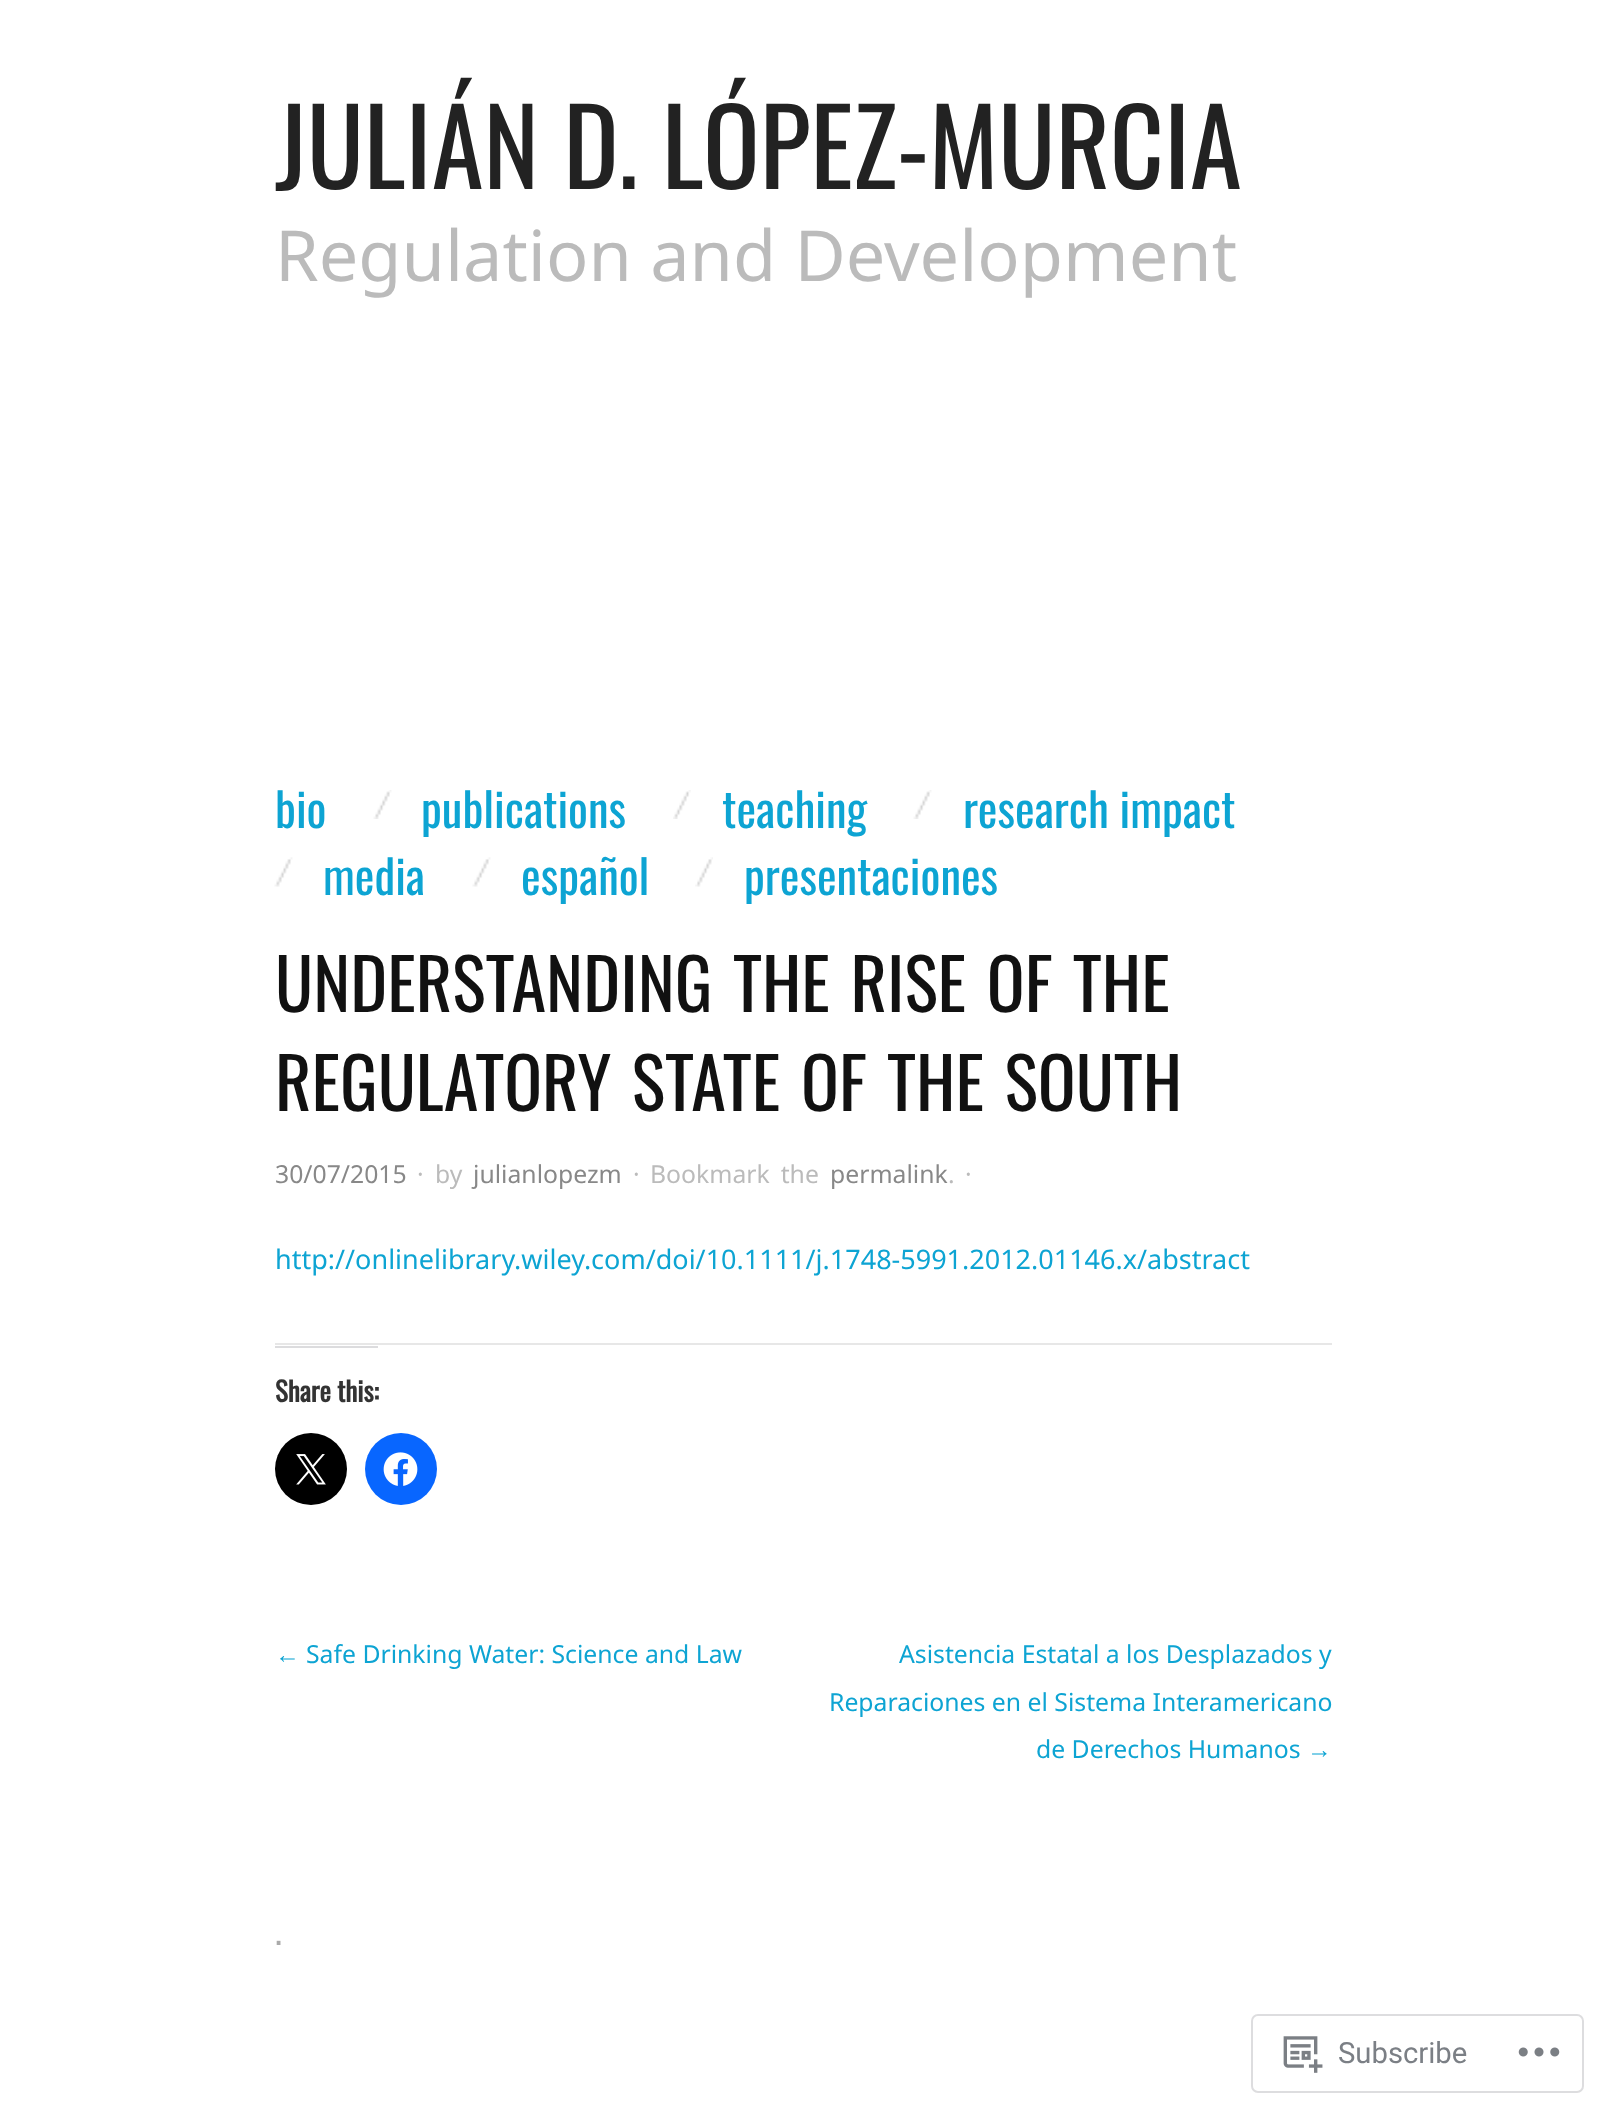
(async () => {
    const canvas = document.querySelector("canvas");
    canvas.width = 1605;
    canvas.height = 2115;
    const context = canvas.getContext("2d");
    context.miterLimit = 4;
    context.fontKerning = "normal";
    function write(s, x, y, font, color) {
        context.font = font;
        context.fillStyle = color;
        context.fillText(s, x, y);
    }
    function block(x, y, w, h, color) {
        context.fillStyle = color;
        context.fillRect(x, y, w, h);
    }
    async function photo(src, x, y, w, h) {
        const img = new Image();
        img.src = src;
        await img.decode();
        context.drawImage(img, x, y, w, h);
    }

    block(0, 0, 1605, 2115, "rgb(255, 255, 255)");
    write("JULIÁN D. LÓPEZ-MURCIA", 275, 189, "105.25px Oswald", "rgb(34, 34, 34)");
    write("Regulation and Development", 275, 281, "70.25px Noto Sans", "rgb(187, 187, 187)");
    write("bio", 275, 828, "46.75px Oswald", "rgb(13, 164, 211)");
    await photo("media/1.png", 373, 790, 19, 29);
    write("publications", 421, 828, "46.75px Oswald", "rgb(13, 164, 211)");
    await photo("media/2.png", 673, 790, 18, 29);
    write("teaching", 722, 828, "46.75px Oswald", "rgb(13, 164, 211)");
    await photo("media/3.png", 913, 790, 19, 29);
    write("research impact", 963, 828, "46.75px Oswald", "rgb(13, 164, 211)");
    await photo("media/4.png", 274, 857, 19, 30);
    write("media", 323, 895, "46.75px Oswald", "rgb(13, 164, 211)");
    await photo("media/4.png", 472, 857, 19, 30);
    write("español", 521, 895, "46.75px Oswald", "rgb(13, 164, 211)");
    await photo("media/5.png", 695, 857, 18, 30);
    write("presentaciones", 744, 895, "46.75px Oswald", "rgb(13, 164, 211)");
    context.wordSpacing = "4.5px";
    write("UNDERSTANDING THE RISE OF THE", 275, 1012, "70.25px Oswald", "rgb(17, 17, 17)");
    write("REGULATORY STATE OF THE SOUTH", 275, 1111, "70.25px Oswald", "rgb(17, 17, 17)");
    context.wordSpacing = "0px";
    write("30/07/2015", 275, 1183, "24.75px Noto Sans", "rgb(136, 136, 136)");
    write("·", 417, 1183, "24.75px Noto Sans", "rgb(187, 187, 187)");
    write("by", 435, 1183, "24.75px Noto Sans", "rgb(187, 187, 187)");
    write("julianlopezm", 473, 1183, "24.75px Noto Sans", "rgb(136, 136, 136)");
    write("·", 633, 1183, "24.75px Noto Sans", "rgb(187, 187, 187)");
    context.wordSpacing = "4.5px";
    write("Bookmark the", 650, 1183, "24.75px Noto Sans", "rgb(187, 187, 187)");
    context.wordSpacing = "0px";
    write("permalink", 830, 1183, "24.75px Noto Sans", "rgb(136, 136, 136)");
    write("·", 965, 1183, "24.75px Noto Sans", "rgb(187, 187, 187)");
    write(".", 948, 1183, "24.75px Noto Sans", "rgb(187, 187, 187)");
    write("http://onlinelibrary.wiley.com/doi/10.1111/j.1748-5991.2012.01146.x/abstract", 275, 1269, "27px Noto Sans", "rgb(13, 164, 211)");
    block(275, 1343, 1057, 2, "rgb(231, 231, 231)");
    block(275, 1346, 103, 2, "rgb(220, 220, 222)");
    write("Share this:", 275, 1402, "bold 27px Oswald", "rgb(51, 51, 51)");
    context.fillStyle = "rgb(0, 0, 0)";
    context.beginPath();
    context.arc(311, 1469, 36, 0, Math.PI * 2);
    context.fill();
    await photo("media/6.png", 296, 1454, 30, 31);
    context.fillStyle = "rgb(8, 102, 255)";
    context.beginPath();
    context.arc(401, 1469, 36, 0, Math.PI * 2);
    context.fill();
    await photo("media/7.png", 383, 1452, 35, 34);
    write("←", 275, 1663, "24.75px Liberation Sans", "rgb(13, 164, 211)");
    write("Safe Drinking Water: Science and Law", 306, 1663, "24.75px Noto Sans", "rgb(13, 164, 211)");
    write("Asistencia Estatal a los Desplazados y", 899, 1663, "24.75px Noto Sans", "rgb(13, 164, 211)");
    write("Reparaciones en el Sistema Interamericano", 829, 1711, "24.75px Noto Sans", "rgb(13, 164, 211)");
    write("de Derechos Humanos", 1036, 1758, "24.75px Noto Sans", "rgb(13, 164, 211)");
    write("→", 1307, 1758, "24.75px Liberation Sans", "rgb(13, 164, 211)");
    context.letterSpacing = "2px";
    write(".", 275, 1945, "35px Oswald", "rgb(170, 170, 170)");
    context.beginPath();
    context.roundRect(1252, 2015, 331, 77, 6);
    context.strokeStyle = "rgb(221, 221, 223)";
    context.lineWidth = 2;
    context.stroke();
    await photo("media/8.png", 1283, 2036, 40, 37);
    context.letterSpacing = "0px";
    write("Subscribe", 1338, 2063, "29.25px Roboto", "rgb(123, 127, 133)");
    await photo("media/9.png", 1518, 2047, 42, 10);
})();
